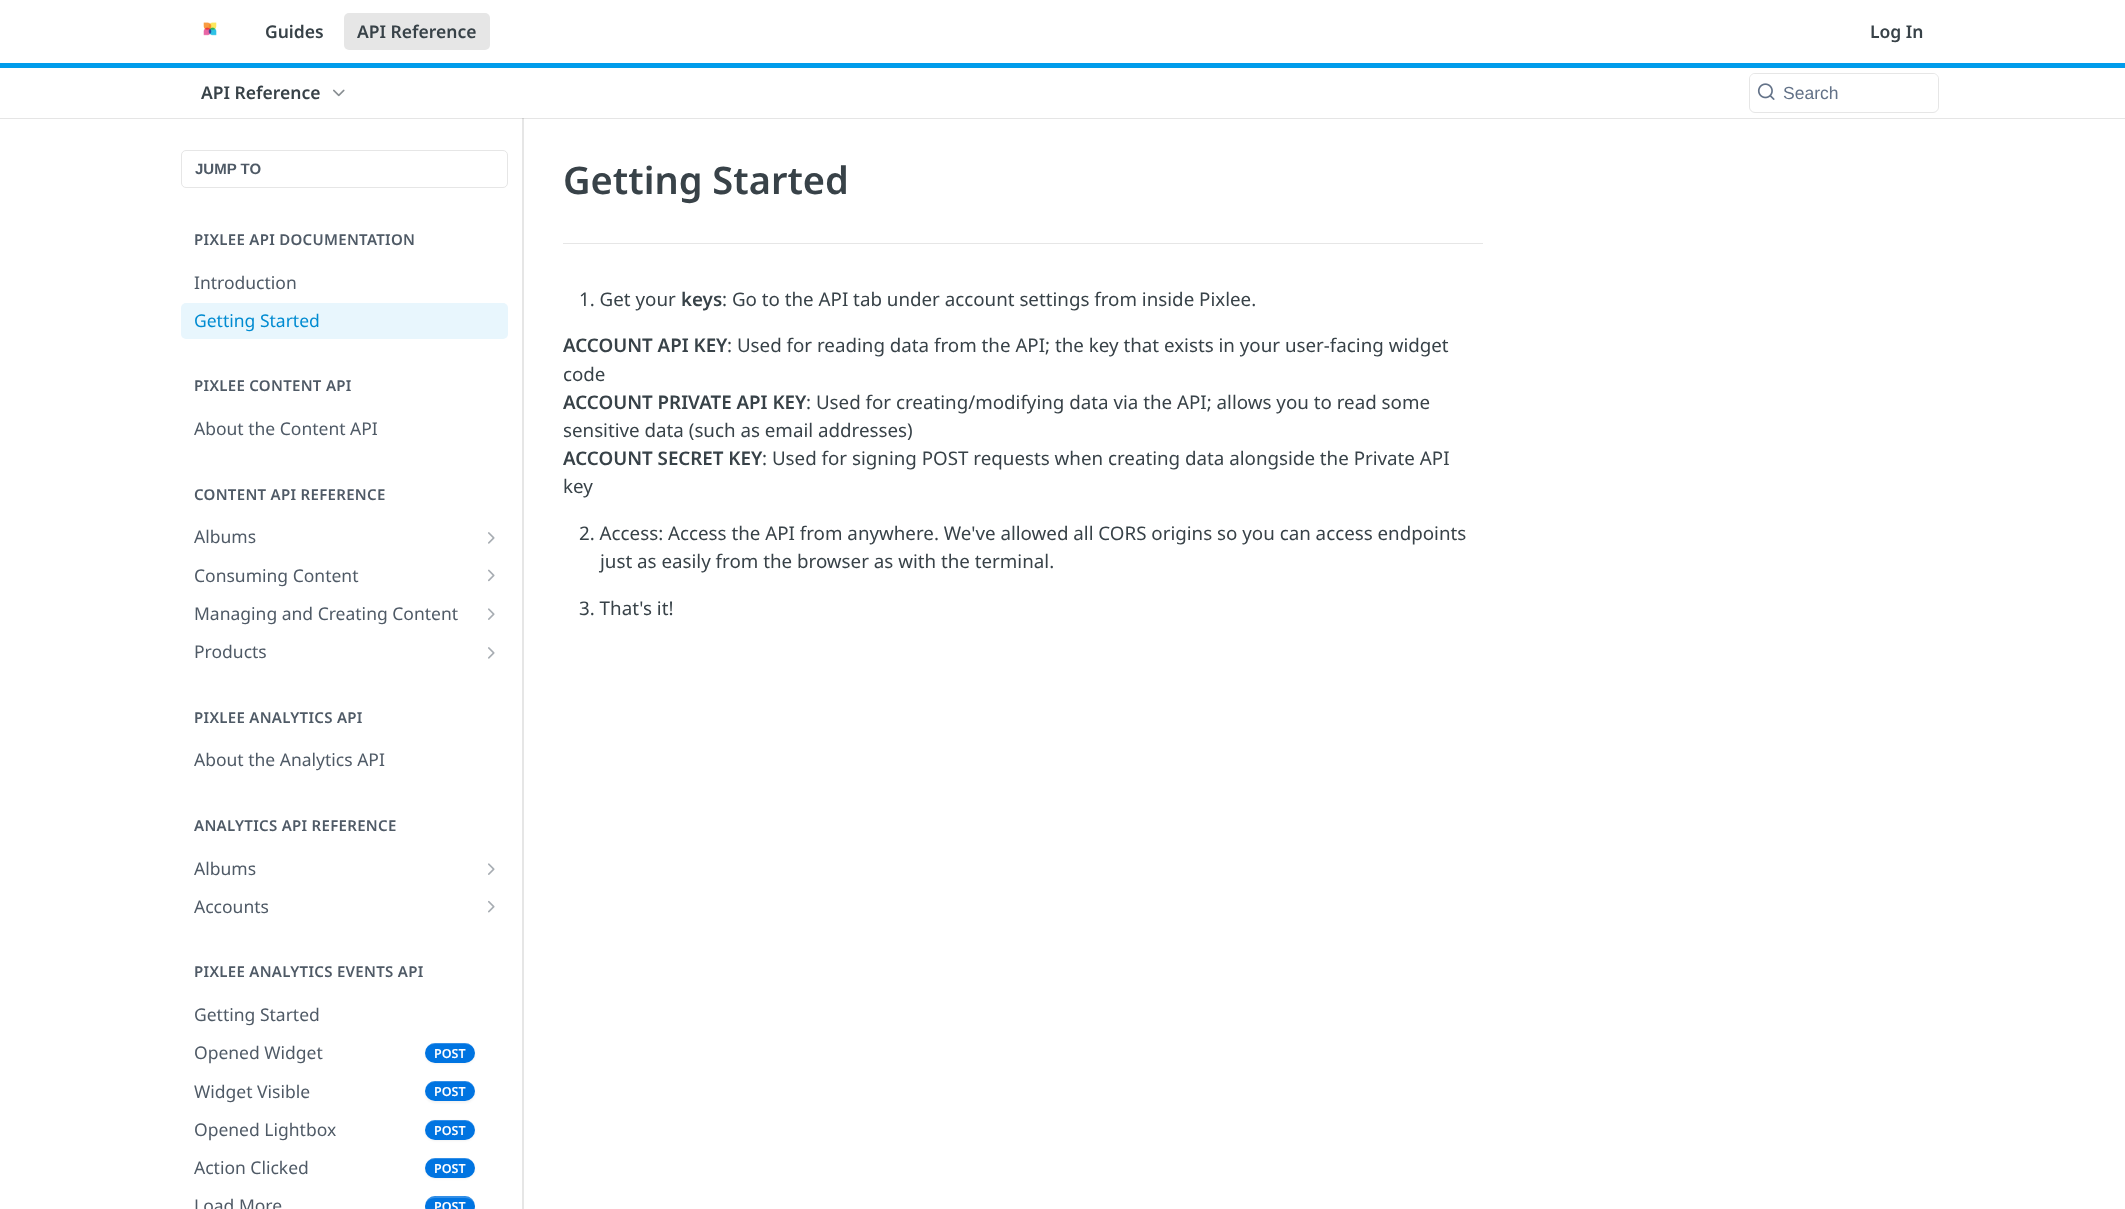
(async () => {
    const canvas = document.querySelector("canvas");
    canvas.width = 2125;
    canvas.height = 1209;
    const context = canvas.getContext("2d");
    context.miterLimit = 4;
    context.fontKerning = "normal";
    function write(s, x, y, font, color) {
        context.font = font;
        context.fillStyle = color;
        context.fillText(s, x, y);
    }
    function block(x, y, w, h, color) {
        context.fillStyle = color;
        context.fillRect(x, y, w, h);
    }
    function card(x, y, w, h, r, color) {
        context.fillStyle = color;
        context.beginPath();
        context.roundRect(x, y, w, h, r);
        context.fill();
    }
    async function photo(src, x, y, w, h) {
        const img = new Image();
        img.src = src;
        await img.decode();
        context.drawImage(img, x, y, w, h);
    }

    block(0, 0, 2125, 1209, "rgb(255, 255, 255)");
    context.fillStyle = "rgb(230, 230, 230)";
    context.beginPath();
    context.moveTo(164, 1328);
    context.lineTo(524, 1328);
    context.lineTo(524, 118);
    context.lineTo(522, 118);
    context.lineTo(522, 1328);
    context.closePath();
    context.fill();
    block(0, 118, 2125, 1, "rgba(0, 0, 0, 0.1)");
    block(0, 63, 2125, 5, "rgb(0, 156, 235)");
    await photo("media/1.png", 203, 22, 14, 14);
    write("Guides", 265, 38, "600 17.5px Noto Sans", "rgb(56, 66, 72)");
    card(344, 13, 146, 37, 5, "rgb(230, 230, 230)");
    write("API Reference", 357, 38, "600 17.5px Noto Sans", "rgb(56, 66, 72)");
    write("Log In", 1870, 38, "600 17.5px Noto Sans", "rgb(56, 66, 72)");
    write("API Reference", 201, 99, "600 17.5px Noto Sans", "rgb(56, 66, 72)");
    await photo("media/2.png", 333, 89, 12, 8);
    context.beginPath();
    context.roundRect(1749.5, 73.5, 189, 39, 5.5);
    context.strokeStyle = "rgb(230, 230, 230)";
    context.stroke();
    card(1750, 74, 188, 37, 5, "rgb(255, 255, 255)");
    await photo("media/3.png", 1757, 83, 18, 17);
    write("Search", 1783, 99, "17.5px Liberation Sans", "rgb(99, 114, 136)");
    context.beginPath();
    context.roundRect(181.5, 150.5, 326, 37, 4.5);
    context.stroke();
    write("JUMP TO", 195, 174, "bold 15px Liberation Sans", "rgb(79, 90, 102)");
    context.letterSpacing = "0.3px";
    write("PIXLEE API DOCUMENTATION", 194, 245, "600 15px Noto Sans", "rgb(79, 90, 102)");
    context.letterSpacing = "0px";
    write("Introduction", 194, 289, "17.5px Noto Sans", "rgb(79, 90, 102)");
    card(181, 303, 327, 36, 5, "rgb(232, 246, 253)");
    write("Getting Started", 194, 327, "17.5px Noto Sans", "rgb(0, 139, 209)");
    context.letterSpacing = "0.3px";
    write("PIXLEE CONTENT API", 194, 391, "600 15px Noto Sans", "rgb(79, 90, 102)");
    context.letterSpacing = "0px";
    write("About the Content API", 194, 435, "17.5px Noto Sans", "rgb(79, 90, 102)");
    context.letterSpacing = "0.3px";
    write("CONTENT API REFERENCE", 194, 500, "600 15px Noto Sans", "rgb(79, 90, 102)");
    context.letterSpacing = "0px";
    write("Albums", 194, 543, "17.5px Noto Sans", "rgb(79, 90, 102)");
    await photo("media/4.png", 488, 532, 7, 12);
    write("Consuming Content", 194, 582, "17.5px Noto Sans", "rgb(79, 90, 102)");
    await photo("media/5.png", 488, 569, 7, 13);
    write("Managing and Creating Content", 194, 620, "17.5px Noto Sans", "rgb(79, 90, 102)");
    await photo("media/6.png", 488, 608, 7, 12);
    write("Products", 194, 658, "17.5px Noto Sans", "rgb(79, 90, 102)");
    await photo("media/4.png", 488, 647, 7, 12);
    context.letterSpacing = "0.3px";
    write("PIXLEE ANALYTICS API", 194, 723, "600 15px Noto Sans", "rgb(79, 90, 102)");
    context.letterSpacing = "0px";
    write("About the Analytics API", 194, 766, "17.5px Noto Sans", "rgb(79, 90, 102)");
    context.letterSpacing = "0.3px";
    write("ANALYTICS API REFERENCE", 194, 831, "600 15px Noto Sans", "rgb(79, 90, 102)");
    context.letterSpacing = "0px";
    write("Albums", 194, 875, "17.5px Noto Sans", "rgb(79, 90, 102)");
    await photo("media/6.png", 488, 863, 7, 12);
    write("Accounts", 194, 913, "17.5px Noto Sans", "rgb(79, 90, 102)");
    await photo("media/7.png", 488, 900, 7, 13);
    context.letterSpacing = "0.3px";
    write("PIXLEE ANALYTICS EVENTS API", 194, 977, "600 15px Noto Sans", "rgb(79, 90, 102)");
    context.letterSpacing = "0px";
    write("Getting Started", 194, 1021, "17.5px Noto Sans", "rgb(79, 90, 102)");
    write("Opened Widget", 194, 1059, "17.5px Noto Sans", "rgb(79, 90, 102)");
    context.fillStyle = "rgba(0, 0, 0, 0.05)";
    context.filter = "blur(1px)";
    context.beginPath();
    context.roundRect(425, 1044, 50, 20, 10);
    context.fill();
    context.filter = "none";
    card(425, 1043, 50, 20, 10, "rgb(0, 116, 225)");
    context.fillStyle = "rgba(255, 255, 255, 0.2)";
    context.beginPath();
    context.moveTo(435, 1044);
    context.lineTo(465, 1044);
    context.bezierCurveTo(471, 1044, 475, 1048, 475, 1053);
    context.bezierCurveTo(476, 1040, 458, 1043, 450, 1043);
    context.bezierCurveTo(442, 1043, 424, 1040, 425, 1053);
    context.bezierCurveTo(425, 1048, 429, 1044, 435, 1044);
    context.closePath();
    context.fill();
    write("POST", 434, 1058, "600 12.5px Noto Sans", "rgb(255, 255, 255)");
    write("Widget Visible", 194, 1098, "17.5px Noto Sans", "rgb(79, 90, 102)");
    context.fillStyle = "rgba(0, 0, 0, 0.05)";
    context.filter = "blur(1px)";
    context.beginPath();
    context.roundRect(425, 1083, 50, 20, 10);
    context.fill();
    context.filter = "none";
    card(425, 1081, 50, 20, 10, "rgb(0, 116, 225)");
    context.fillStyle = "rgba(255, 255, 255, 0.2)";
    context.beginPath();
    context.moveTo(435, 1082);
    context.lineTo(465, 1082);
    context.bezierCurveTo(471, 1082, 475, 1087, 475, 1092);
    context.bezierCurveTo(476, 1078, 458, 1081, 450, 1081);
    context.bezierCurveTo(442, 1081, 424, 1078, 425, 1092);
    context.bezierCurveTo(425, 1087, 429, 1082, 435, 1082);
    context.closePath();
    context.fill();
    write("POST", 434, 1096, "600 12.5px Noto Sans", "rgb(255, 255, 255)");
    write("Opened Lightbox", 194, 1136, "17.5px Noto Sans", "rgb(79, 90, 102)");
    context.fillStyle = "rgba(0, 0, 0, 0.05)";
    context.filter = "blur(1px)";
    context.beginPath();
    context.roundRect(425, 1121, 50, 20, 10);
    context.fill();
    context.filter = "none";
    card(425, 1120, 50, 20, 10, "rgb(0, 116, 225)");
    context.fillStyle = "rgba(255, 255, 255, 0.2)";
    context.beginPath();
    context.moveTo(435, 1121);
    context.lineTo(465, 1121);
    context.bezierCurveTo(471, 1121, 475, 1126, 475, 1131);
    context.bezierCurveTo(476, 1117, 458, 1120, 450, 1120);
    context.bezierCurveTo(442, 1120, 424, 1117, 425, 1131);
    context.bezierCurveTo(425, 1126, 429, 1121, 435, 1121);
    context.closePath();
    context.fill();
    write("POST", 434, 1135, "600 12.5px Noto Sans", "rgb(255, 255, 255)");
    write("Action Clicked", 194, 1174, "17.5px Noto Sans", "rgb(79, 90, 102)");
    context.fillStyle = "rgba(0, 0, 0, 0.05)";
    context.filter = "blur(1px)";
    context.beginPath();
    context.roundRect(425, 1159, 50, 20, 10);
    context.fill();
    context.filter = "none";
    card(425, 1158, 50, 20, 10, "rgb(0, 116, 225)");
    context.fillStyle = "rgba(255, 255, 255, 0.2)";
    context.beginPath();
    context.moveTo(435, 1159);
    context.lineTo(465, 1159);
    context.bezierCurveTo(471, 1159, 475, 1163, 475, 1168);
    context.bezierCurveTo(476, 1155, 458, 1158, 450, 1158);
    context.bezierCurveTo(442, 1158, 424, 1155, 425, 1168);
    context.bezierCurveTo(425, 1163, 429, 1159, 435, 1159);
    context.closePath();
    context.fill();
    write("POST", 434, 1173, "600 12.5px Noto Sans", "rgb(255, 255, 255)");
    write("Load More", 194, 1212, "17.5px Noto Sans", "rgb(79, 90, 102)");
    card(425, 1196, 50, 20, 10, "rgb(0, 116, 225)");
    context.fillStyle = "rgba(255, 255, 255, 0.2)";
    context.beginPath();
    context.moveTo(435, 1198);
    context.lineTo(465, 1198);
    context.bezierCurveTo(471, 1198, 475, 1202, 475, 1207);
    context.bezierCurveTo(476, 1193, 458, 1196, 450, 1196);
    context.bezierCurveTo(442, 1196, 424, 1193, 425, 1207);
    context.bezierCurveTo(425, 1202, 429, 1198, 435, 1198);
    context.closePath();
    context.fill();
    write("POST", 434, 1211, "600 12.5px Noto Sans", "rgb(255, 255, 255)");
    block(563, 243, 920, 1, "rgb(230, 230, 230)");
    write("Getting Started", 563, 194, "600 38px Noto Sans", "rgb(56, 66, 72)");
    write("1. Get your", 579, 306, "18.75px Noto Sans", "rgb(56, 66, 72)");
    write("keys", 681, 306, "600 18.75px Noto Sans", "rgb(56, 66, 72)");
    write(": Go to the API tab under account settings from inside Pixlee.", 722, 306, "18.75px Noto Sans", "rgb(56, 66, 72)");
    write("ACCOUNT API KEY", 563, 352, "600 18.75px Noto Sans", "rgb(56, 66, 72)");
    write(": Used for reading data from the API; the key that exists in your user-facing widget", 727, 352, "18.75px Noto Sans", "rgb(56, 66, 72)");
    write("code", 563, 381, "18.75px Noto Sans", "rgb(56, 66, 72)");
    write("ACCOUNT PRIVATE API KEY", 563, 409, "600 18.75px Noto Sans", "rgb(56, 66, 72)");
    write(": Used for creating/modifying data via the API; allows you to read some", 806, 409, "18.75px Noto Sans", "rgb(56, 66, 72)");
    write("sensitive data (such as email addresses)", 563, 437, "18.75px Noto Sans", "rgb(56, 66, 72)");
    write("ACCOUNT SECRET KEY", 563, 465, "600 18.75px Noto Sans", "rgb(56, 66, 72)");
    write(": Used for signing POST requests when creating data alongside the Private API", 762, 465, "18.75px Noto Sans", "rgb(56, 66, 72)");
    write("key", 563, 493, "18.75px Noto Sans", "rgb(56, 66, 72)");
    write("2. Access: Access the API from anywhere. We've allowed all CORS origins so you can access endpoints", 579, 540, "18.75px Noto Sans", "rgb(56, 66, 72)");
    write("just as easily from the browser as with the terminal.", 600, 568, "18.75px Noto Sans", "rgb(56, 66, 72)");
    write("3. That's it!", 579, 615, "18.75px Noto Sans", "rgb(56, 66, 72)");
})();
